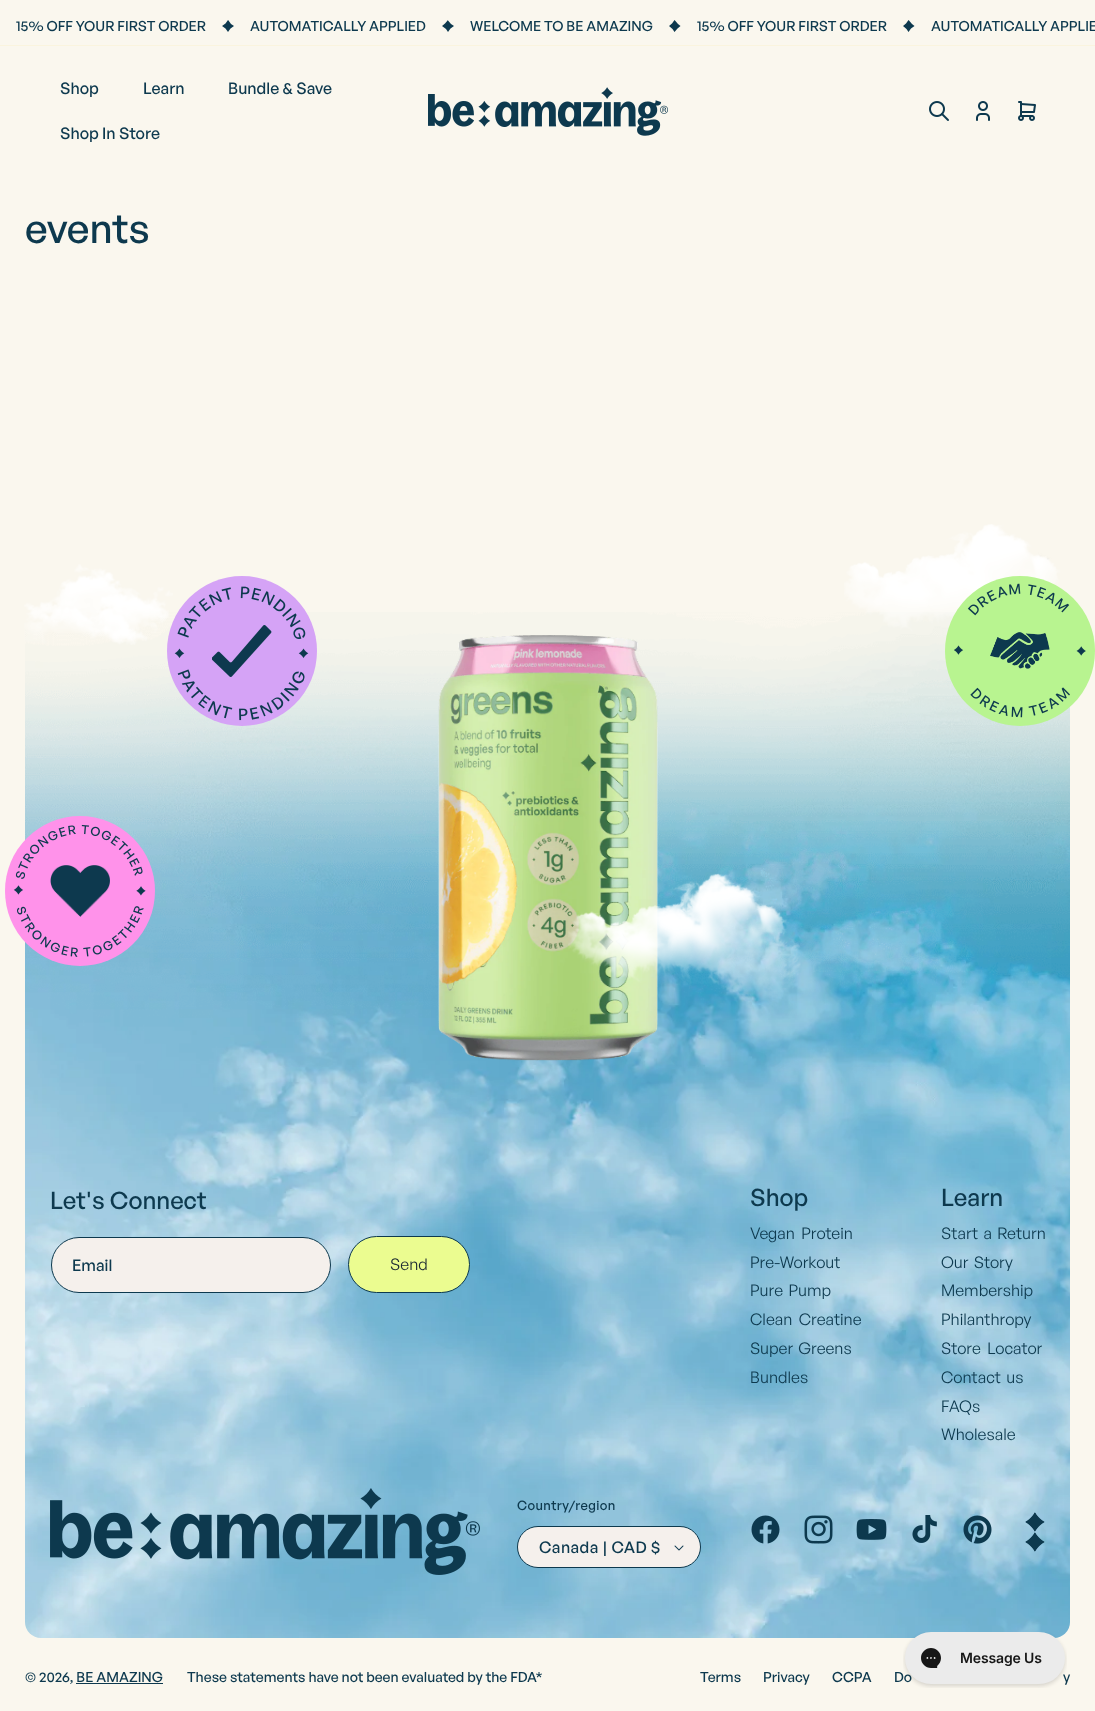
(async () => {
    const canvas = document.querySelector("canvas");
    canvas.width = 1095;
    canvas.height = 1711;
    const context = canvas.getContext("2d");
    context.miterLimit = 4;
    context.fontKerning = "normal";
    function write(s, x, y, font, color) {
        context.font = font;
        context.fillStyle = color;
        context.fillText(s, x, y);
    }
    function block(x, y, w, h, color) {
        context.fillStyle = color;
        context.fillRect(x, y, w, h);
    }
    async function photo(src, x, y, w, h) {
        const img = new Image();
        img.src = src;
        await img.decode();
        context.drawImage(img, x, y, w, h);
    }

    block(0, 0, 1095, 1711, "rgb(250, 247, 238)");
    write("15% OFF YOUR FIRST ORDER", 16, 31, "500 14px General Sans", "rgb(13, 57, 78)");
    context.beginPath();
    context.moveTo(228, 20);
    context.lineTo(225.5, 23.5);
    context.lineTo(222, 26);
    context.lineTo(225.5, 28.5);
    context.lineTo(228, 32);
    context.lineTo(230.5, 28.5);
    context.lineTo(234, 26);
    context.lineTo(231, 24);
    context.lineTo(228.5, 20.5);
    context.closePath();
    context.fill();
    write("AUTOMATICALLY APPLIED", 250, 31, "500 14px General Sans", "rgb(13, 57, 78)");
    context.beginPath();
    context.moveTo(448, 20);
    context.lineTo(445, 23.5);
    context.lineTo(442, 26);
    context.lineTo(446, 29);
    context.lineTo(448, 32);
    context.lineTo(450.5, 28.5);
    context.lineTo(454, 26);
    context.lineTo(451, 24);
    context.lineTo(448, 20.5);
    context.closePath();
    context.fill();
    write("WELCOME TO BE AMAZING", 470, 31, "500 14px General Sans", "rgb(13, 57, 78)");
    context.beginPath();
    context.moveTo(674.5, 20);
    context.lineTo(672, 23.5);
    context.lineTo(669, 26);
    context.lineTo(672.5, 29);
    context.lineTo(674.5, 32);
    context.lineTo(677.5, 28.5);
    context.lineTo(680.5, 26);
    context.lineTo(678, 24);
    context.lineTo(675, 20.5);
    context.closePath();
    context.fill();
    write("15% OFF YOUR FIRST ORDER", 697, 31, "500 14px General Sans", "rgb(13, 57, 78)");
    context.beginPath();
    context.moveTo(908.5, 20);
    context.lineTo(906, 23.5);
    context.lineTo(903, 26);
    context.lineTo(906.5, 29);
    context.lineTo(908.5, 32);
    context.lineTo(911, 28.5);
    context.lineTo(914.5, 26);
    context.lineTo(912, 24);
    context.lineTo(909, 20.5);
    context.closePath();
    context.fill();
    write("AUTOMATICALLY APPLIE", 931, 31, "500 14px General Sans", "rgb(13, 57, 78)");
    block(0, 45, 1095, 1, "rgb(250, 244, 222)");
    write("Shop", 60, 94, "500 16px General Sans", "rgb(13, 57, 78)");
    write("Learn", 143, 94, "500 16px General Sans", "rgb(13, 57, 78)");
    write("Bundle & Save", 228, 94, "500 16px General Sans", "rgb(13, 57, 78)");
    write("Shop In Store", 60, 139, "500 16px General Sans", "rgb(13, 57, 78)");
    await photo("media/1.png", 428, 87, 240, 49);
    await photo("media/2.png", 929, 101, 20, 20);
    await photo("media/3.png", 976, 101, 14, 20);
    await photo("media/4.png", 1018, 101, 18, 20);
    write("events", 25, 243, "500 40px General Sans", "rgb(13, 57, 78)");
    await photo("media/15.png", 25, 612, 1045, 1026);
    await photo("media/5.png", 24, 564, 149, 81);
    await photo("media/6.png", 844, 524, 226, 109);
    await photo("media/7.png", 438, 635, 220, 426);
    await photo("media/8.png", 568, 873, 233, 135);
    context.fillStyle = "rgb(213, 163, 246)";
    context.beginPath();
    context.arc(242, 651, 75, 0, Math.PI * 2);
    context.fill();
    await photo("media/10.png", 212, 625, 60, 52);
    await photo("media/9.png", 174, 586, 135, 135);
    context.fillStyle = "rgb(184, 244, 144)";
    context.beginPath();
    context.arc(1020, 651, 75, 0, Math.PI * 2);
    context.fill();
    await photo("media/12.png", 990, 632, 60, 37);
    await photo("media/11.png", 954, 583, 132, 135);
    context.fillStyle = "rgb(255, 146, 234)";
    context.beginPath();
    context.arc(80, 891, 75, 0, Math.PI * 2);
    context.fill();
    await photo("media/14.png", 50, 865, 60, 52);
    await photo("media/13.png", 13, 824, 133, 133);
    write("Let's Connect", 50, 1209, "500 24px General Sans", "rgb(13, 57, 78)");
    context.fillStyle = "rgb(245, 240, 236)";
    context.beginPath();
    context.roundRect(51.5, 1237.5, 279, 55, 27.5);
    context.fill();
    context.strokeStyle = "rgb(13, 57, 78)";
    context.stroke();
    write("Email", 72, 1271, "500 16px General Sans", "rgb(13, 57, 78)");
    context.fillStyle = "rgb(235, 252, 144)";
    context.beginPath();
    context.roundRect(348.5, 1236.5, 121, 56, 28);
    context.fill();
    context.stroke();
    write("Send", 390, 1270, "16px General Sans", "rgb(26, 40, 50)");
    write("Shop", 750, 1206, "500 24px General Sans", "rgb(13, 57, 78)");
    context.wordSpacing = "3px";
    write("Vegan Protein", 750, 1239, "16px General Sans", "rgb(13, 57, 78)");
    context.wordSpacing = "0px";
    write("Pre-Workout", 750, 1268, "16px General Sans", "rgb(13, 57, 78)");
    context.wordSpacing = "2px";
    write("Pure Pump", 750, 1296, "16px General Sans", "rgb(13, 57, 78)");
    context.wordSpacing = "3px";
    write("Clean Creatine", 750, 1325, "16px General Sans", "rgb(13, 57, 78)");
    context.wordSpacing = "2px";
    write("Super Greens", 750, 1354, "16px General Sans", "rgb(13, 57, 78)");
    context.wordSpacing = "0px";
    write("Bundles", 750, 1383, "16px General Sans", "rgb(13, 57, 78)");
    write("Learn", 941, 1206, "500 24px General Sans", "rgb(13, 57, 78)");
    context.wordSpacing = "2px";
    write("Start a Return", 941, 1239, "16px General Sans", "rgb(13, 57, 78)");
    write("Our Story", 941, 1268, "16px General Sans", "rgb(13, 57, 78)");
    context.wordSpacing = "0px";
    write("Membership", 941, 1296, "16px General Sans", "rgb(13, 57, 78)");
    write("Philanthropy", 941, 1325, "16px General Sans", "rgb(13, 57, 78)");
    context.wordSpacing = "3px";
    write("Store Locator", 941, 1354, "16px General Sans", "rgb(13, 57, 78)");
    context.wordSpacing = "2px";
    write("Contact us", 941, 1383, "16px General Sans", "rgb(13, 57, 78)");
    context.wordSpacing = "0px";
    write("FAQs", 941, 1412, "16px General Sans", "rgb(13, 57, 78)");
    write("Wholesale", 941, 1440, "16px General Sans", "rgb(13, 57, 78)");
    await photo("media/16.png", 50, 1488, 430, 87);
    context.letterSpacing = "0.4px";
    write("Country/region", 517, 1510, "500 13px General Sans", "rgb(13, 57, 78)");
    context.fillStyle = "rgb(245, 240, 236)";
    context.beginPath();
    context.roundRect(517.5, 1526.5, 183, 41, 20.5);
    context.fill();
    context.stroke();
    write("Canada | CAD $", 539, 1553, "500 16px General Sans", "rgb(13, 57, 78)");
    await photo("media/17.png", 674, 1545, 10, 6);
    await photo("media/18.png", 751, 1515, 29, 29);
    await photo("media/19.png", 804, 1515, 29, 29);
    await photo("media/20.png", 856, 1519, 31, 21);
    await photo("media/21.png", 912, 1515, 25, 28);
    await photo("media/22.png", 963, 1515, 29, 29);
    await photo("media/23.png", 1025, 1512, 20, 40);
    context.letterSpacing = "0px";
    write("© 2026, BE AMAZING", 25, 1682, "500 14px General Sans", "rgb(13, 57, 78)");
    block(76, 1683, 87, 1, "rgb(13, 57, 78)");
    write("These statements have not been evaluated by the FDA*", 187, 1682, "500 14px General Sans", "rgb(13, 57, 78)");
    write("Terms", 700, 1682, "500 14px General Sans", "rgb(13, 57, 78)");
    write("Privacy", 763, 1682, "500 14px General Sans", "rgb(13, 57, 78)");
    write("CCPA", 832, 1682, "500 14px General Sans", "rgb(13, 57, 78)");
    write("Do", 894, 1682, "500 14px General Sans", "rgb(13, 57, 78)");
    write("y", 1063, 1682, "500 14px General Sans", "rgb(13, 57, 78)");
    await photo("media/24.png", 903, 1632, 164, 56);
})();
